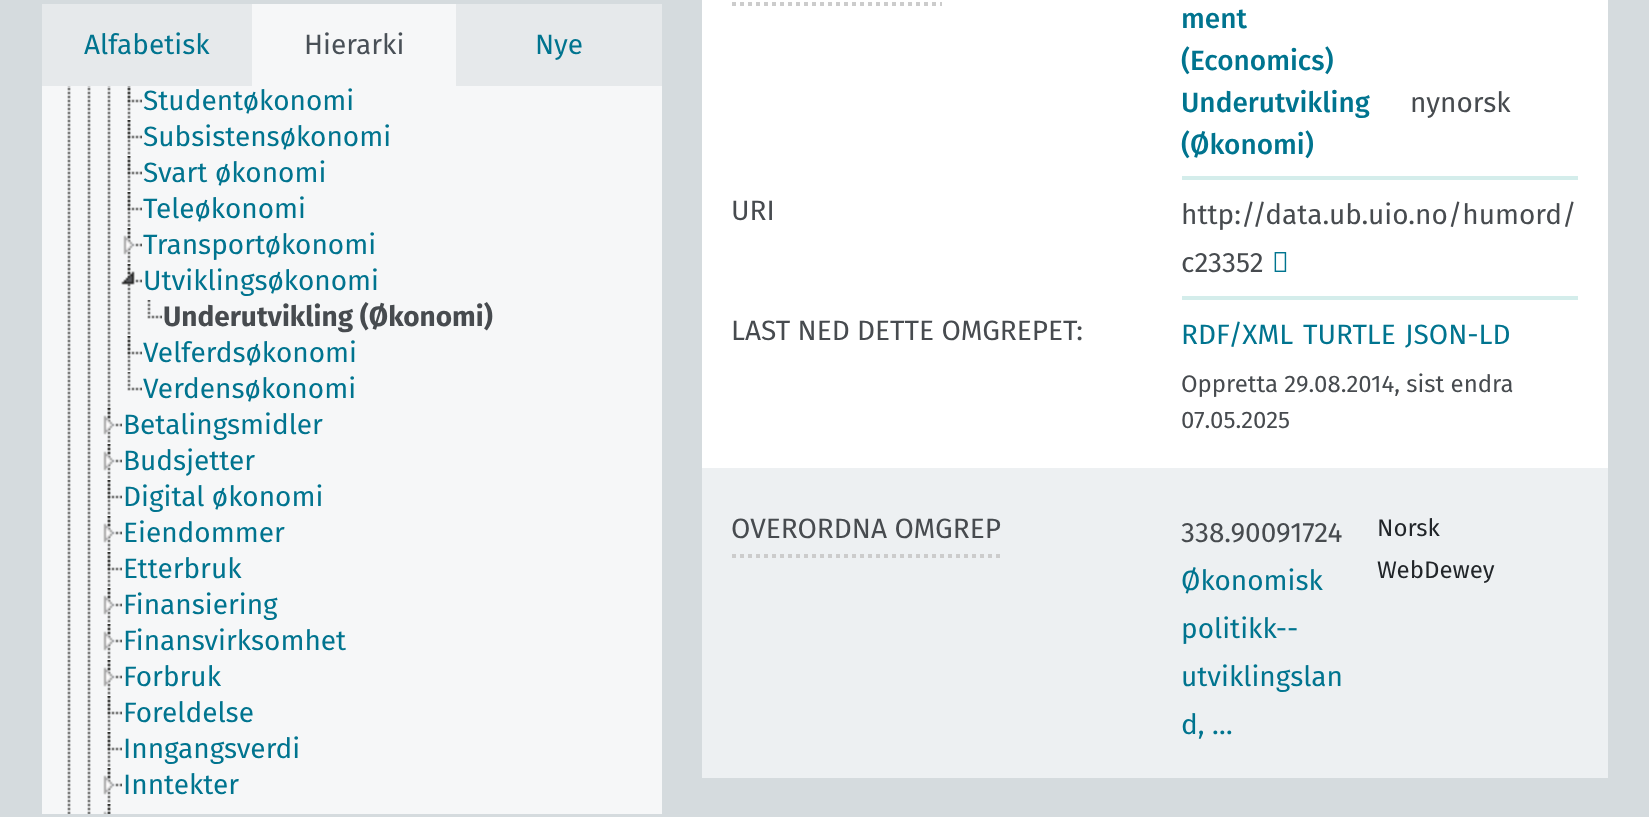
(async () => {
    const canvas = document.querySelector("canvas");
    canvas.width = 1649;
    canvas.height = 817;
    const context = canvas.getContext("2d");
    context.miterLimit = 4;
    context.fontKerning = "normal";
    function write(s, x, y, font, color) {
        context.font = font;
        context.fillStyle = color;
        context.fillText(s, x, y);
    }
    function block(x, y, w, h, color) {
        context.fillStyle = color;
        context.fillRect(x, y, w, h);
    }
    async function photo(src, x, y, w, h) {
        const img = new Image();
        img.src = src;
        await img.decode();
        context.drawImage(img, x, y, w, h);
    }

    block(0, 0, 1649, 817, "rgb(213, 219, 222)");
    block(42, 4, 210, 82, "rgb(230, 233, 235)");
    write("Alfabetisk", 84, 54, "28px Fira Sans", "rgb(0, 116, 143)");
    block(252, 4, 204, 82, "rgb(246, 247, 248)");
    write("Hierarki", 304, 54, "28px Fira Sans", "rgb(73, 80, 87)");
    block(456, 4, 206, 82, "rgb(230, 233, 235)");
    write("Nye", 535, 54, "28px Fira Sans", "rgb(0, 116, 143)");
    block(42, 86, 620, 728, "rgb(246, 247, 248)");
    await photo("media/1.png", 67, 86, 4, 728);
    await photo("media/1.png", 87, 86, 4, 728);
    await photo("media/2.png", 107, 86, 4, 322);
    await photo("media/3.png", 127, 86, 4, 33);
    await photo("media/4.png", 127, 86, 15, 17);
    write("Studentøkonomi", 143, 110, "28px Fira Sans", "rgb(0, 116, 143)");
    await photo("media/5.png", 127, 120, 4, 35);
    await photo("media/6.png", 127, 120, 15, 19);
    write("Subsistensøkonomi", 143, 146, "28px Fira Sans", "rgb(0, 116, 143)");
    await photo("media/5.png", 127, 156, 4, 35);
    await photo("media/6.png", 127, 156, 15, 19);
    write("Svart økonomi", 143, 182, "28px Fira Sans", "rgb(0, 116, 143)");
    await photo("media/5.png", 127, 192, 4, 35);
    await photo("media/6.png", 127, 192, 15, 19);
    write("Teleøkonomi", 143, 218, "28px Fira Sans", "rgb(0, 116, 143)");
    await photo("media/5.png", 127, 228, 4, 35);
    await photo("media/7.png", 123, 228, 19, 27);
    write("Transportøkonomi", 143, 254, "28px Fira Sans", "rgb(0, 116, 143)");
    await photo("media/8.png", 127, 264, 4, 71);
    await photo("media/9.png", 121, 264, 21, 21);
    write("Utviklingsøkonomi", 143, 290, "28px Fira Sans", "rgb(0, 116, 143)");
    await photo("media/10.png", 147, 300, 15, 19);
    write("Underutvikling (Økonomi)", 163, 326, "bold 28px Fira Sans", "rgb(71, 75, 79)");
    await photo("media/5.png", 127, 336, 4, 35);
    await photo("media/6.png", 127, 336, 15, 19);
    write("Velferdsøkonomi", 143, 362, "28px Fira Sans", "rgb(0, 116, 143)");
    await photo("media/10.png", 127, 372, 15, 19);
    write("Verdensøkonomi", 143, 398, "28px Fira Sans", "rgb(0, 116, 143)");
    await photo("media/5.png", 107, 408, 4, 35);
    await photo("media/7.png", 103, 408, 19, 27);
    write("Betalingsmidler", 123, 434, "28px Fira Sans", "rgb(0, 116, 143)");
    await photo("media/5.png", 107, 444, 4, 35);
    await photo("media/7.png", 103, 444, 19, 27);
    write("Budsjetter", 123, 470, "28px Fira Sans", "rgb(0, 116, 143)");
    await photo("media/5.png", 107, 480, 4, 35);
    await photo("media/6.png", 107, 480, 15, 19);
    write("Digital økonomi", 123, 506, "28px Fira Sans", "rgb(0, 116, 143)");
    await photo("media/5.png", 107, 516, 4, 35);
    await photo("media/7.png", 103, 516, 19, 27);
    write("Eiendommer", 123, 542, "28px Fira Sans", "rgb(0, 116, 143)");
    await photo("media/5.png", 107, 552, 4, 35);
    await photo("media/6.png", 107, 552, 15, 19);
    write("Etterbruk", 123, 578, "28px Fira Sans", "rgb(0, 116, 143)");
    await photo("media/5.png", 107, 588, 4, 35);
    await photo("media/7.png", 103, 588, 19, 27);
    write("Finansiering", 123, 614, "28px Fira Sans", "rgb(0, 116, 143)");
    await photo("media/5.png", 107, 624, 4, 35);
    await photo("media/7.png", 103, 624, 19, 27);
    write("Finansvirksomhet", 123, 650, "28px Fira Sans", "rgb(0, 116, 143)");
    await photo("media/5.png", 107, 660, 4, 35);
    await photo("media/7.png", 103, 660, 19, 27);
    write("Forbruk", 123, 686, "28px Fira Sans", "rgb(0, 116, 143)");
    await photo("media/5.png", 107, 696, 4, 35);
    await photo("media/6.png", 107, 696, 15, 19);
    write("Foreldelse", 123, 722, "28px Fira Sans", "rgb(0, 116, 143)");
    await photo("media/5.png", 107, 732, 4, 35);
    await photo("media/6.png", 107, 732, 15, 19);
    write("Inngangsverdi", 123, 758, "28px Fira Sans", "rgb(0, 116, 143)");
    await photo("media/5.png", 107, 768, 4, 35);
    await photo("media/7.png", 103, 768, 19, 27);
    write("Inntekter", 123, 794, "28px Fira Sans", "rgb(0, 116, 143)");
    await photo("media/11.png", 107, 804, 4, 10);
    await photo("media/12.png", 103, 804, 8, 10);
    block(702, 0, 906, 468, "rgb(255, 255, 255)");
    context.beginPath();
    context.moveTo(732, 4);
    context.lineTo(942, 4);
    context.strokeStyle = "rgb(204, 204, 204)";
    context.lineWidth = 4;
    context.setLineDash([4, 4]);
    context.stroke();
    block(1182, 176, 396, 4, "rgb(212, 237, 235)");
    write("ment", 1181, 28, "500 28px Fira Sans", "rgb(0, 116, 143)");
    write("(Economics)", 1181, 70, "500 28px Fira Sans", "rgb(0, 116, 143)");
    write("Underutvikling", 1181, 112, "500 28px Fira Sans", "rgb(0, 116, 143)");
    write("(Økonomi)", 1181, 154, "500 28px Fira Sans", "rgb(0, 116, 143)");
    write("nynorsk", 1410, 112, "28px Fira Sans", "rgb(71, 75, 79)");
    write("URI", 731, 220, "28px Fira Sans", "rgb(71, 75, 79)");
    block(1182, 296, 396, 4, "rgb(212, 237, 235)");
    write("http://data.ub.uio.no/humord/", 1181, 224, "28px Fira Sans", "rgb(71, 75, 79)");
    write("c23352", 1181, 272, "28px Fira Sans", "rgb(71, 75, 79)");
    await photo("media/13.png", 1274, 252, 13, 20);
    write("LAST NED DETTE OMGREPET:", 731, 340, "28px Fira Sans", "rgb(71, 75, 79)");
    write("RDF/XML", 1181, 344, "28px Fira Sans", "rgb(0, 116, 143)");
    write("TURTLE", 1303, 344, "28px Fira Sans", "rgb(0, 116, 143)");
    write("JSON-LD", 1405, 344, "28px Fira Sans", "rgb(0, 116, 143)");
    write("Oppretta 29.08.2014, sist endra", 1181, 392, "24px Fira Sans", "rgb(71, 75, 79)");
    write("07.05.2025", 1181, 428, "24px Fira Sans", "rgb(71, 75, 79)");
    block(702, 468, 906, 310, "rgb(237, 240, 242)");
    context.beginPath();
    context.moveTo(732, 556);
    context.lineTo(1002, 556);
    context.stroke();
    write("OVERORDNA OMGREP", 731, 538, "28px Fira Sans", "rgb(71, 75, 79)");
    write("338.90091724", 1181, 542, "28px Fira Sans", "rgb(71, 75, 79)");
    write("Økonomisk", 1181, 590, "28px Fira Sans", "rgb(0, 116, 143)");
    write("politikk--", 1181, 638, "28px Fira Sans", "rgb(0, 116, 143)");
    write("utviklingslan", 1181, 686, "28px Fira Sans", "rgb(0, 116, 143)");
    write("d, …", 1181, 734, "28px Fira Sans", "rgb(0, 116, 143)");
    write("Norsk", 1377, 536, "24px Fira Sans", "rgb(33, 37, 41)");
    write("WebDewey", 1377, 578, "24px Fira Sans", "rgb(33, 37, 41)");
})();
